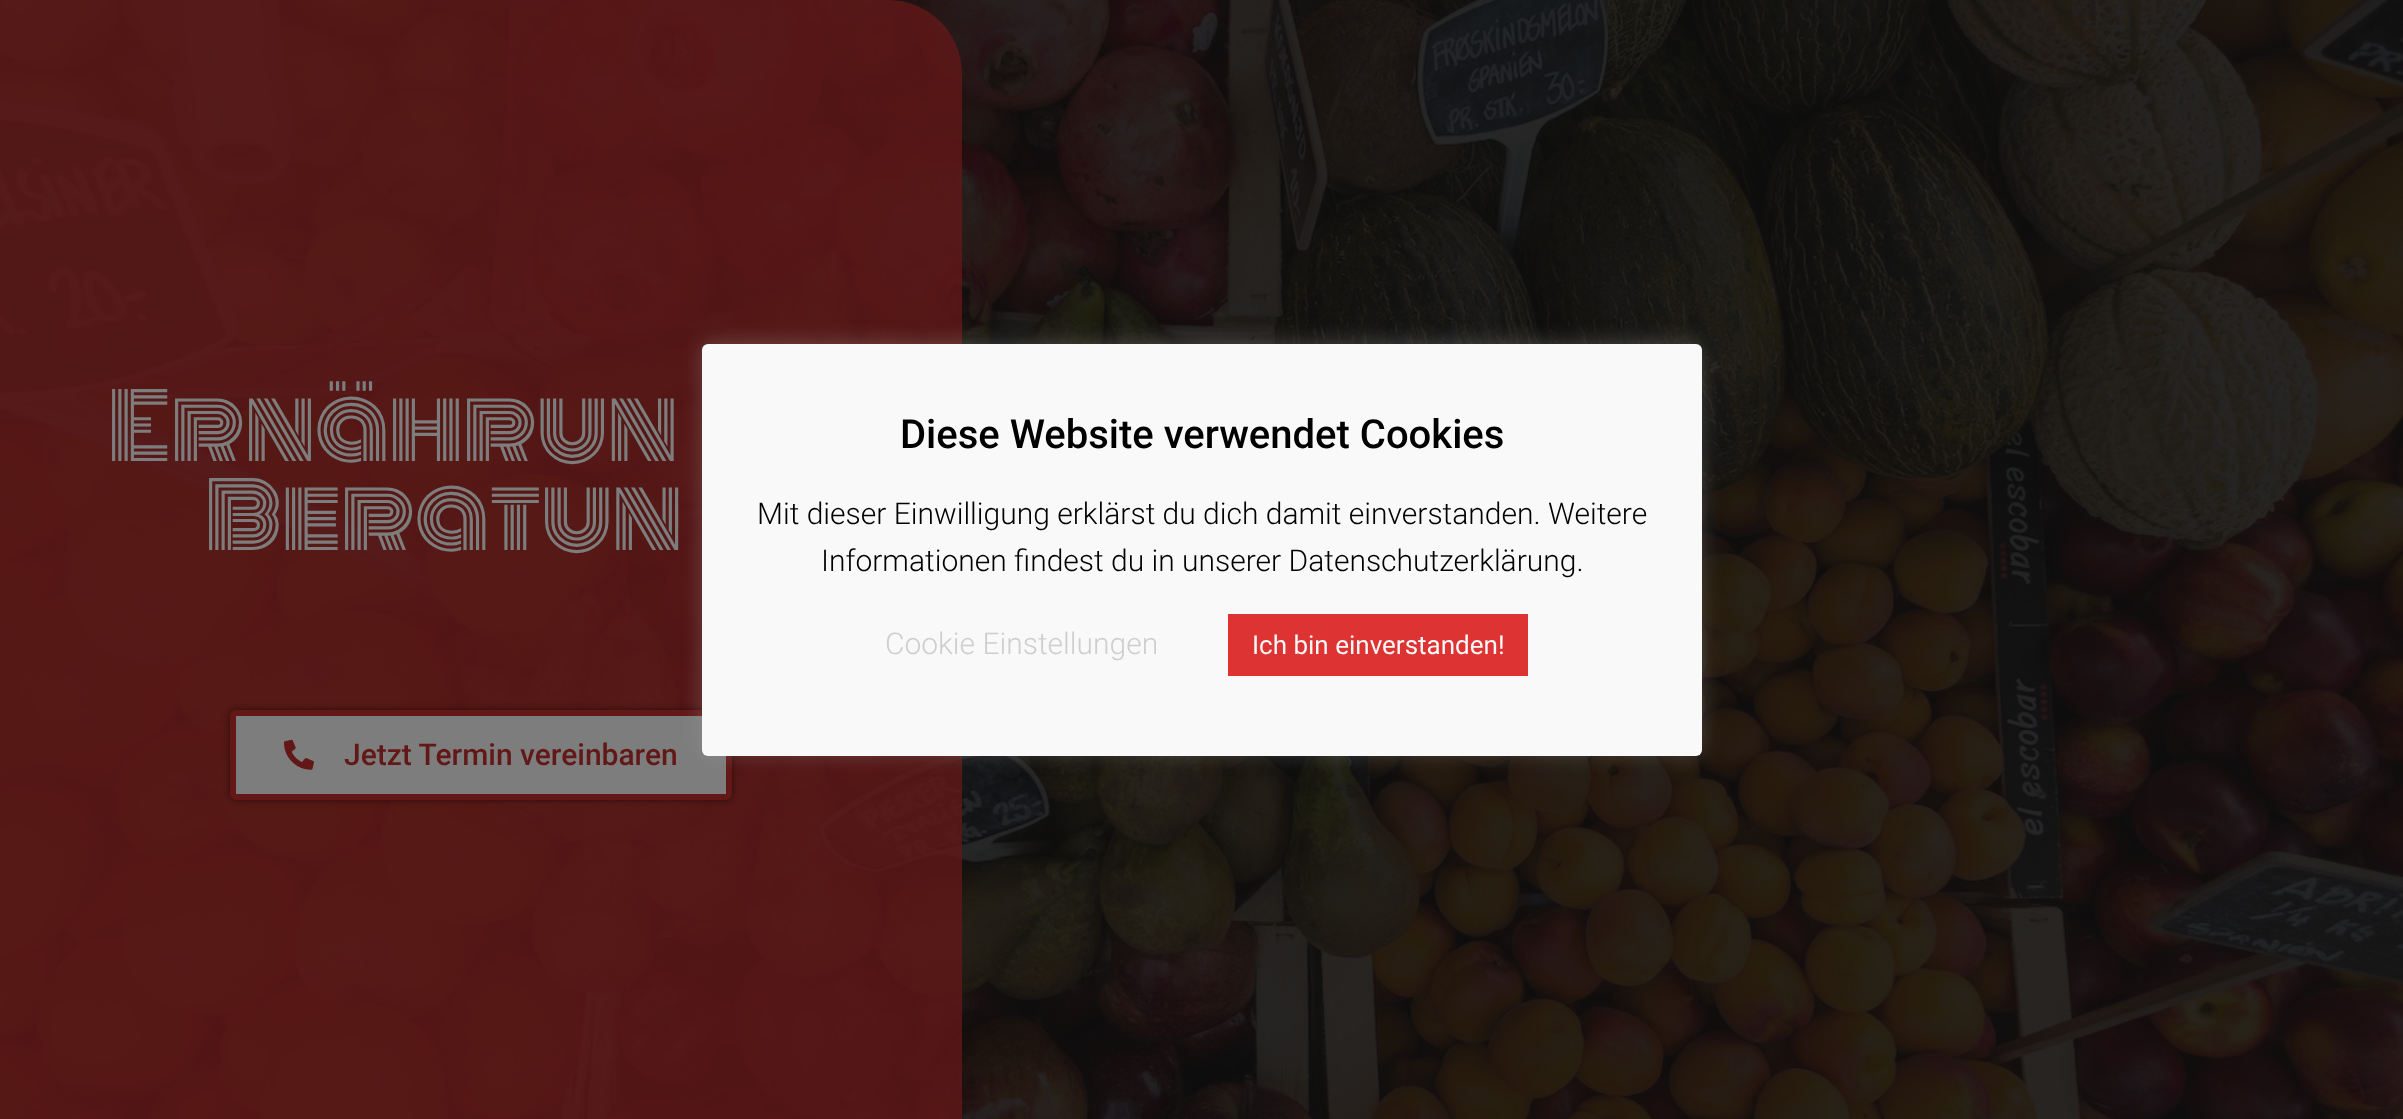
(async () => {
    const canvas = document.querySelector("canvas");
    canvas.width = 2403;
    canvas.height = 1119;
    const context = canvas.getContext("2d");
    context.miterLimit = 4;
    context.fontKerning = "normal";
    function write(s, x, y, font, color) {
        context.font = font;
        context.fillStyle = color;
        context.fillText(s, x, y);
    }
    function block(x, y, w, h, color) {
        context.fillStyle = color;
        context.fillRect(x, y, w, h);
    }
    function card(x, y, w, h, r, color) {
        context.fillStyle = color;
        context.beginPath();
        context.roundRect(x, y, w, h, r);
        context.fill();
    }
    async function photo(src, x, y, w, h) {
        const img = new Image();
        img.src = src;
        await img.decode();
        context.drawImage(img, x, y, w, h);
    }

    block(0, 0, 2403, 1119, "rgb(255, 255, 255)");
    await photo("media/1.png", 0, 0, 2403, 1119);
    context.fillStyle = "rgba(99, 24, 24, 0.8)";
    context.beginPath();
    context.moveTo(0, 0);
    context.lineTo(888, 0);
    context.bezierCurveTo(929, 0, 962, 33, 962, 74);
    context.lineTo(962, 1119);
    context.bezierCurveTo(962, 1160, 929, 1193, 888, 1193);
    context.lineTo(0, 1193);
    context.closePath();
    context.fill();
    write("Ernährun", 108, 461, "89px Monoton", "rgb(125, 125, 125)");
    write("Beratun", 205, 550, "89px Monoton", "rgb(125, 125, 125)");
    context.fillStyle = "rgba(0, 0, 0, 0.5)";
    context.filter = "blur(3px)";
    context.beginPath();
    context.roundRect(230, 710, 502, 90, 6);
    context.fill();
    context.filter = "none";
    context.fillStyle = "rgb(125, 125, 125)";
    context.beginPath();
    context.roundRect(233, 713, 496, 84, 3);
    context.fill();
    context.strokeStyle = "rgb(99, 24, 24)";
    context.lineWidth = 6;
    context.stroke();
    await photo("media/2.png", 284, 739, 30, 31);
    write("Jetzt Termin vereinbaren", 344, 765, "500 30px Roboto", "rgb(99, 24, 24)");
    context.fillStyle = "rgba(172, 171, 171, 0.3)";
    context.filter = "blur(10px)";
    context.beginPath();
    context.roundRect(702, 342, 1000, 412, 6);
    context.fill();
    context.filter = "none";
    card(702, 344, 1000, 412, 6, "rgb(249, 249, 249)");
    write("Diese Website verwendet Cookies", 900, 448, "500 40px Roboto", "rgb(0, 0, 0)");
    write("Mit dieser Einwilligung erklärst du dich damit einverstanden. Weitere", 757, 524, "300 30px Roboto", "rgb(0, 0, 0)");
    write("Informationen findest du in unserer Datenschutzerklärung.", 821, 571, "300 30px Roboto", "rgb(0, 0, 0)");
    write("Cookie Einstellungen", 885, 654, "300 30px Roboto", "rgb(206, 206, 206)");
    block(1228, 614, 300, 62, "rgb(221, 51, 51)");
    write("Ich bin einverstanden!", 1252, 654, "26px Roboto", "rgb(249, 249, 249)");
})();
